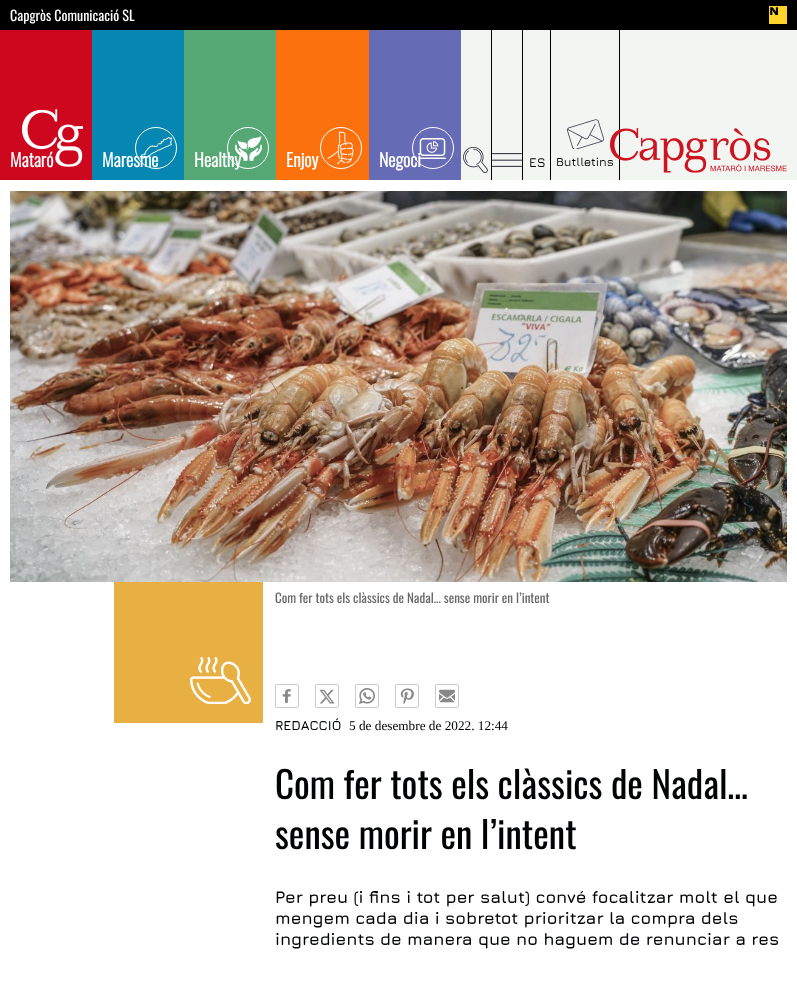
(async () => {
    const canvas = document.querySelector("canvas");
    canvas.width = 797;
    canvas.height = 998;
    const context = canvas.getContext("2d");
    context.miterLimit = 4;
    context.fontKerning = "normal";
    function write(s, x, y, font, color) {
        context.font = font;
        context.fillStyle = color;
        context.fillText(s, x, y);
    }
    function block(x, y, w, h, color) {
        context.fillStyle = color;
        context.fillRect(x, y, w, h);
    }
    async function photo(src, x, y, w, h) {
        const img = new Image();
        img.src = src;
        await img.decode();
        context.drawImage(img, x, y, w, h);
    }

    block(0, 0, 797, 998, "rgb(255, 255, 255)");
    block(0, 0, 797, 30, "rgb(0, 0, 0)");
    write("Capgròs Comunicació SL", 10, 21, "14px Oswald", "rgb(255, 255, 255)");
    await photo("media/1.png", 769, 6, 18, 18);
    block(461, 30, 336, 150, "rgb(243, 245, 242)");
    block(0, 30, 92, 150, "rgb(205, 7, 30)");
    write("Mataró", 10, 167, "bold 18px Oswald", "rgb(255, 255, 255)");
    await photo("media/2.png", 22, 109, 61, 58);
    block(92, 30, 92, 150, "rgb(6, 135, 177)");
    write("Maresme", 102, 167, "bold 18px Oswald", "rgb(255, 255, 255)");
    await photo("media/3.png", 140, 137, 32, 22);
    context.beginPath();
    context.arc(156, 148, 20.5, 0, Math.PI * 2);
    context.strokeStyle = "rgb(255, 255, 255)";
    context.stroke();
    block(184, 30, 92, 150, "rgb(85, 168, 116)");
    write("Healthy", 194, 167, "bold 18px Oswald", "rgb(255, 255, 255)");
    await photo("media/4.png", 235, 136, 27, 25);
    context.beginPath();
    context.arc(248, 148, 20.5, 0, Math.PI * 2);
    context.stroke();
    block(276, 30, 93, 150, "rgb(250, 113, 13)");
    write("Enjoy", 286, 167, "bold 18px Oswald", "rgb(255, 255, 255)");
    await photo("media/5.png", 327, 131, 27, 34);
    context.beginPath();
    context.arc(341, 148, 20.5, 0, Math.PI * 2);
    context.stroke();
    block(369, 30, 92, 150, "rgb(102, 107, 181)");
    write("Negoci", 379, 167, "bold 18px Oswald", "rgb(255, 255, 255)");
    await photo("media/6.png", 419, 138, 27, 21);
    context.beginPath();
    context.arc(433, 148, 20.5, 0, Math.PI * 2);
    context.stroke();
    block(491, 30, 1, 150, "rgb(0, 0, 0)");
    await photo("media/7.png", 463, 147, 25, 26);
    block(522, 30, 1, 150, "rgb(0, 0, 0)");
    await photo("media/8.png", 492, 153, 30, 14);
    block(550, 30, 1, 150, "rgb(0, 0, 0)");
    write("ES", 529, 167, "600 13px Jura", "rgb(1, 2, 3)");
    block(619, 30, 1, 150, "rgb(0, 0, 0)");
    await photo("media/9.png", 567, 119, 37, 30);
    write("Butlletins", 556, 166, "600 12px Jura", "rgb(1, 2, 3)");
    await photo("media/10.png", 610, 128, 177, 45);
    await photo("media/11.png", 10, 191, 777, 391);
    block(114, 582, 149, 141, "rgb(232, 175, 67)");
    await photo("media/12.png", 190, 657, 61, 47);
    write("Com fer tots els clàssics de Nadal… sense morir en l’intent", 275, 603, "13px Oswald", "rgb(102, 102, 102)");
    context.beginPath();
    context.roundRect(275.5, 684.5, 23, 23, 1.5);
    context.strokeStyle = "rgb(204, 204, 204)";
    context.stroke();
    await photo("media/13.png", 282, 689, 9, 14);
    context.beginPath();
    context.roundRect(315.5, 684.5, 23, 23, 1.5);
    context.stroke();
    await photo("media/14.png", 319, 689, 16, 15);
    context.beginPath();
    context.roundRect(355.5, 684.5, 23, 23, 1.5);
    context.stroke();
    await photo("media/15.png", 359, 688, 16, 16);
    context.beginPath();
    context.roundRect(395.5, 684.5, 23, 23, 1.5);
    context.stroke();
    await photo("media/16.png", 400, 688, 14, 17);
    context.beginPath();
    context.roundRect(435.5, 684.5, 23, 23, 1.5);
    context.stroke();
    await photo("media/17.png", 439, 689, 16, 14);
    write("REDACCIÓ", 275, 730, "bold 13.25px Jura", "rgb(1, 2, 3)");
    write("5 de desembre de 2022. 12:44", 349, 730, "13.25px Liberation Serif", "rgb(1, 2, 3)");
    write("Com fer tots els clàssics de Nadal…", 275, 799, "37.1px Oswald", "rgb(1, 2, 3)");
    write("sense morir en l’intent", 275, 849, "37.1px Oswald", "rgb(1, 2, 3)");
    write("Per preu (i fins i tot per salut) convé focalitzar molt el que", 275, 903, "bold 16.9px Jura", "rgb(1, 2, 3)");
    write("mengem cada dia i sobretot prioritzar la compra dels", 275, 924, "bold 16.9px Jura", "rgb(1, 2, 3)");
    write("ingredients de manera que no haguem de renunciar a res", 275, 945, "bold 16.9px Jura", "rgb(1, 2, 3)");
})();
